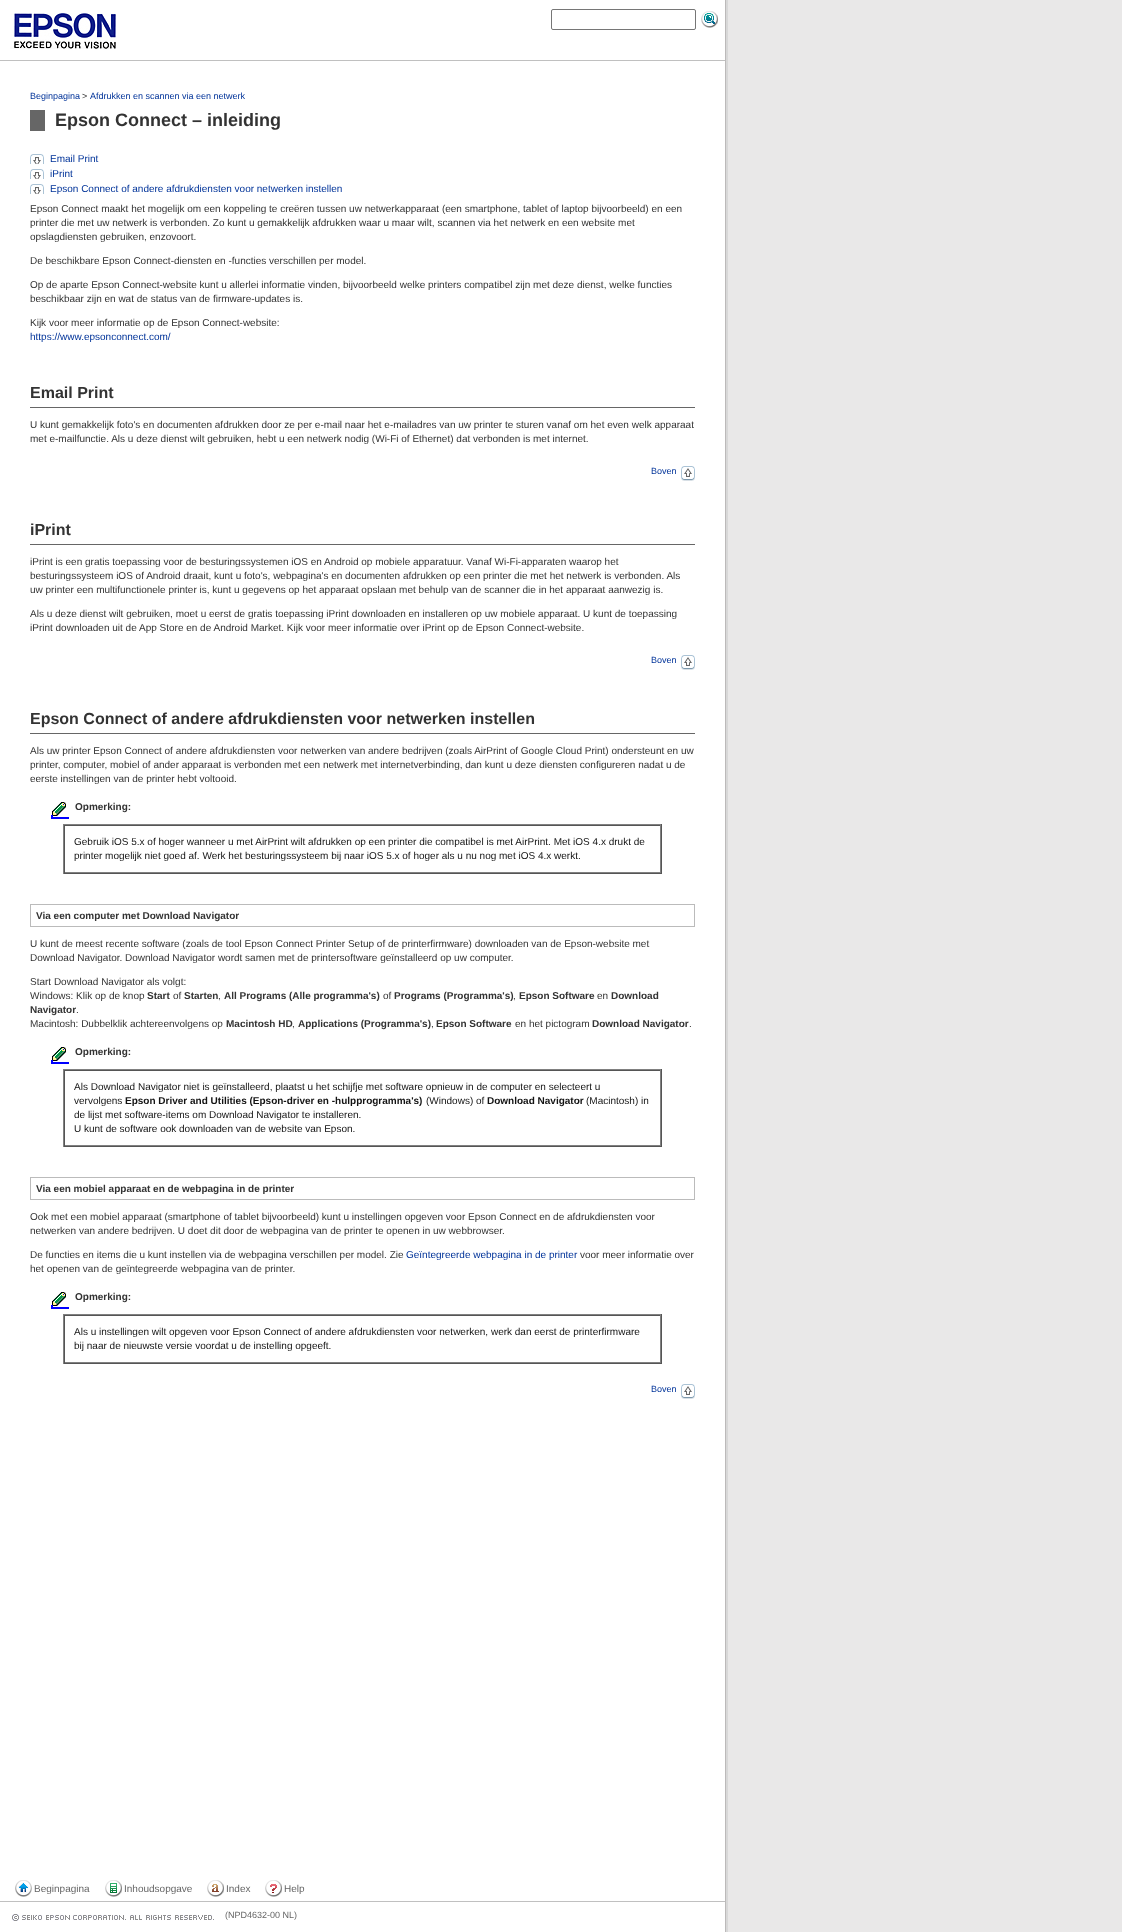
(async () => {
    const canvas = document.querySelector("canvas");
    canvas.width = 1122;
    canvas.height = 1932;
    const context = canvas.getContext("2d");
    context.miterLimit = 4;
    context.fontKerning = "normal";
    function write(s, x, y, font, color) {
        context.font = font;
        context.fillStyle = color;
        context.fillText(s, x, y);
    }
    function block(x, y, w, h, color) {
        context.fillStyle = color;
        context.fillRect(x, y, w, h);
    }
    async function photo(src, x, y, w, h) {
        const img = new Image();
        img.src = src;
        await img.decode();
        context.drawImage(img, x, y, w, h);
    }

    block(0, 0, 1122, 1932, "rgb(255, 255, 255)");
    await photo("media/1.png", 725, 0, 397, 1932);
    await photo("media/2.png", 10, 13, 106, 36);
    context.beginPath();
    context.roundRect(551.5, 9.5, 144, 20, 1.5);
    context.strokeStyle = "rgb(118, 118, 118)";
    context.stroke();
    await photo("media/3.png", 701, 11, 17, 17);
    block(0, 60, 725, 1, "rgb(192, 192, 192)");
    write("Beginpagina", 30, 99, "9px Liberation Sans", "rgb(0, 51, 153)");
    write(">", 82, 99, "9px Liberation Sans", "rgb(51, 51, 51)");
    write("Afdrukken en scannen via een netwerk", 90, 99, "9px Liberation Sans", "rgb(0, 51, 153)");
    block(30, 110, 15, 21, "rgb(102, 102, 102)");
    write("Epson Connect – inleiding", 55, 126, "bold 18px Liberation Sans", "rgb(51, 51, 51)");
    await photo("media/4.png", 30, 154, 14, 10);
    write("Email Print", 50, 162, "10px Liberation Sans", "rgb(0, 51, 153)");
    await photo("media/4.png", 30, 169, 14, 10);
    write("iPrint", 50, 177, "10px Liberation Sans", "rgb(0, 51, 153)");
    await photo("media/4.png", 30, 184, 14, 10);
    write("Epson Connect of andere afdrukdiensten voor netwerken instellen", 50, 192, "10px Liberation Sans", "rgb(0, 51, 153)");
    write("Epson Connect maakt het mogelijk om een koppeling te creëren tussen uw netwerkapparaat (een smartphone, tablet of laptop bijvoorbeeld) en een", 30, 212, "10px Liberation Sans", "rgb(51, 51, 51)");
    write("printer die met uw netwerk is verbonden. Zo kunt u gemakkelijk afdrukken waar u maar wilt, scannen via het netwerk en een website met", 30, 226, "10px Liberation Sans", "rgb(51, 51, 51)");
    write("opslagdiensten gebruiken, enzovoort.", 30, 240, "10px Liberation Sans", "rgb(51, 51, 51)");
    write("De beschikbare Epson Connect-diensten en -functies verschillen per model.", 30, 264, "10px Liberation Sans", "rgb(51, 51, 51)");
    write("Op de aparte Epson Connect-website kunt u allerlei informatie vinden, bijvoorbeeld welke printers compatibel zijn met deze dienst, welke functies", 30, 288, "10px Liberation Sans", "rgb(51, 51, 51)");
    write("beschikbaar zijn en wat de status van de firmware-updates is.", 30, 302, "10px Liberation Sans", "rgb(51, 51, 51)");
    write("Kijk voor meer informatie op de Epson Connect-website:", 30, 326, "10px Liberation Sans", "rgb(51, 51, 51)");
    write("https://www.epsonconnect.com/", 30, 340, "10px Liberation Sans", "rgb(0, 51, 153)");
    block(30, 407, 665, 1, "rgb(102, 102, 102)");
    write("Email Print", 30, 398, "bold 16px Liberation Sans", "rgb(51, 51, 51)");
    write("U kunt gemakkelijk foto's en documenten afdrukken door ze per e-mail naar het e-mailadres van uw printer te sturen vanaf om het even welk apparaat", 30, 428, "10px Liberation Sans", "rgb(51, 51, 51)");
    write("met e-mailfunctie. Als u deze dienst wilt gebruiken, hebt u een netwerk nodig (Wi-Fi of Ethernet) dat verbonden is met internet.", 30, 442, "10px Liberation Sans", "rgb(51, 51, 51)");
    write("Boven", 651, 474, "9px Liberation Sans", "rgb(0, 51, 153)");
    await photo("media/5.png", 681, 466, 14, 15);
    block(30, 544, 665, 1, "rgb(102, 102, 102)");
    write("iPrint", 30, 535, "bold 16px Liberation Sans", "rgb(51, 51, 51)");
    write("iPrint is een gratis toepassing voor de besturingssystemen iOS en Android op mobiele apparatuur. Vanaf Wi-Fi-apparaten waarop het", 30, 565, "10px Liberation Sans", "rgb(51, 51, 51)");
    write("besturingssysteem iOS of Android draait, kunt u foto's, webpagina's en documenten afdrukken op een printer die met het netwerk is verbonden. Als", 30, 579, "10px Liberation Sans", "rgb(51, 51, 51)");
    write("uw printer een multifunctionele printer is, kunt u gegevens op het apparaat opslaan met behulp van de scanner die in het apparaat aanwezig is.", 30, 593, "10px Liberation Sans", "rgb(51, 51, 51)");
    write("Als u deze dienst wilt gebruiken, moet u eerst de gratis toepassing iPrint downloaden en installeren op uw mobiele apparaat. U kunt de toepassing", 30, 617, "10px Liberation Sans", "rgb(51, 51, 51)");
    write("iPrint downloaden uit de App Store en de Android Market. Kijk voor meer informatie over iPrint op de Epson Connect-website.", 30, 631, "10px Liberation Sans", "rgb(51, 51, 51)");
    write("Boven", 651, 663, "9px Liberation Sans", "rgb(0, 51, 153)");
    await photo("media/5.png", 681, 655, 14, 15);
    block(30, 733, 665, 1, "rgb(102, 102, 102)");
    write("Epson Connect of andere afdrukdiensten voor netwerken instellen", 30, 724, "bold 16px Liberation Sans", "rgb(51, 51, 51)");
    write("Als uw printer Epson Connect of andere afdrukdiensten voor netwerken van andere bedrijven (zoals AirPrint of Google Cloud Print) ondersteunt en uw", 30, 754, "10px Liberation Sans", "rgb(51, 51, 51)");
    write("printer, computer, mobiel of ander apparaat is verbonden met een netwerk met internetverbinding, dan kunt u deze diensten configureren nadat u de", 30, 768, "10px Liberation Sans", "rgb(51, 51, 51)");
    write("eerste instellingen van de printer hebt voltooid.", 30, 782, "10px Liberation Sans", "rgb(51, 51, 51)");
    await photo("media/6.png", 51, 802, 18, 17);
    write("Opmerking:", 75, 810, "bold 10px Liberation Sans", "rgb(51, 51, 51)");
    block(63, 824, 599, 1, "rgb(128, 128, 128)");
    block(661, 824, 1, 50, "rgb(85, 85, 85)");
    block(63, 873, 599, 1, "rgb(85, 85, 85)");
    block(63, 824, 1, 50, "rgb(128, 128, 128)");
    block(64, 825, 597, 1, "rgb(85, 85, 85)");
    block(660, 825, 1, 48, "rgb(128, 128, 128)");
    block(64, 872, 597, 1, "rgb(128, 128, 128)");
    block(64, 825, 1, 48, "rgb(85, 85, 85)");
    write("Gebruik iOS 5.x of hoger wanneer u met AirPrint wilt afdrukken op een printer die compatibel is met AirPrint. Met iOS 4.x drukt de", 74, 845, "10px Liberation Sans", "rgb(19, 19, 19)");
    write("printer mogelijk niet goed af. Werk het besturingssysteem bij naar iOS 5.x of hoger als u nu nog met iOS 4.x werkt.", 74, 859, "10px Liberation Sans", "rgb(19, 19, 19)");
    context.strokeStyle = "rgb(187, 187, 187)";
    context.strokeRect(30.5, 904.5, 664, 22);
    write("Via een computer met Download Navigator", 36, 919, "bold 10px Liberation Sans", "rgb(51, 51, 51)");
    write("U kunt de meest recente software (zoals de tool Epson Connect Printer Setup of de printerfirmware) downloaden van de Epson-website met", 30, 947, "10px Liberation Sans", "rgb(51, 51, 51)");
    write("Download Navigator. Download Navigator wordt samen met de printersoftware geïnstalleerd op uw computer.", 30, 961, "10px Liberation Sans", "rgb(51, 51, 51)");
    write("Start Download Navigator als volgt:", 30, 985, "10px Liberation Sans", "rgb(51, 51, 51)");
    write("Windows: Klik op de knop", 30, 999, "10px Liberation Sans", "rgb(51, 51, 51)");
    write("Start", 147, 999, "bold 10px Liberation Sans", "rgb(51, 51, 51)");
    write("of", 173, 999, "10px Liberation Sans", "rgb(51, 51, 51)");
    write("Starten", 184, 999, "bold 10px Liberation Sans", "rgb(51, 51, 51)");
    write(",", 218, 999, "10px Liberation Sans", "rgb(51, 51, 51)");
    write("All Programs (Alle programma's)", 224, 999, "bold 10px Liberation Sans", "rgb(51, 51, 51)");
    write("of", 383, 999, "10px Liberation Sans", "rgb(51, 51, 51)");
    write("Programs (Programma's)", 394, 999, "bold 10px Liberation Sans", "rgb(51, 51, 51)");
    write(",", 513, 999, "10px Liberation Sans", "rgb(51, 51, 51)");
    write("Epson Software", 519, 999, "bold 10px Liberation Sans", "rgb(51, 51, 51)");
    write("en", 597, 999, "10px Liberation Sans", "rgb(51, 51, 51)");
    write("Download", 611, 999, "bold 10px Liberation Sans", "rgb(51, 51, 51)");
    write("Navigator", 30, 1013, "bold 10px Liberation Sans", "rgb(51, 51, 51)");
    write(".", 76, 1013, "10px Liberation Sans", "rgb(51, 51, 51)");
    write("Macintosh: Dubbelklik achtereenvolgens op", 30, 1027, "10px Liberation Sans", "rgb(51, 51, 51)");
    write("Macintosh HD", 226, 1027, "bold 10px Liberation Sans", "rgb(51, 51, 51)");
    write(",", 292, 1027, "10px Liberation Sans", "rgb(51, 51, 51)");
    write("Applications (Programma's)", 298, 1027, "bold 10px Liberation Sans", "rgb(51, 51, 51)");
    write(",", 431, 1027, "10px Liberation Sans", "rgb(51, 51, 51)");
    write("Epson Software", 436, 1027, "bold 10px Liberation Sans", "rgb(51, 51, 51)");
    write("en het pictogram", 515, 1027, "10px Liberation Sans", "rgb(51, 51, 51)");
    write("Download Navigator", 592, 1027, "bold 10px Liberation Sans", "rgb(51, 51, 51)");
    write(".", 689, 1027, "10px Liberation Sans", "rgb(51, 51, 51)");
    await photo("media/6.png", 51, 1047, 18, 17);
    write("Opmerking:", 75, 1055, "bold 10px Liberation Sans", "rgb(51, 51, 51)");
    block(63, 1069, 599, 1, "rgb(128, 128, 128)");
    block(661, 1069, 1, 78, "rgb(85, 85, 85)");
    block(63, 1146, 599, 1, "rgb(85, 85, 85)");
    block(63, 1069, 1, 78, "rgb(128, 128, 128)");
    block(64, 1070, 597, 1, "rgb(85, 85, 85)");
    block(660, 1070, 1, 76, "rgb(128, 128, 128)");
    block(64, 1145, 597, 1, "rgb(128, 128, 128)");
    block(64, 1070, 1, 76, "rgb(85, 85, 85)");
    write("Als Download Navigator niet is geïnstalleerd, plaatst u het schijfje met software opnieuw in de computer en selecteert u", 74, 1090, "10px Liberation Sans", "rgb(19, 19, 19)");
    write("vervolgens", 74, 1104, "10px Liberation Sans", "rgb(19, 19, 19)");
    write("Epson Driver and Utilities (Epson-driver en -hulpprogramma's)", 125, 1104, "bold 10px Liberation Sans", "rgb(19, 19, 19)");
    write("(Windows) of", 426, 1104, "10px Liberation Sans", "rgb(19, 19, 19)");
    write("Download Navigator", 487, 1104, "bold 10px Liberation Sans", "rgb(19, 19, 19)");
    write("(Macintosh) in", 586, 1104, "10px Liberation Sans", "rgb(19, 19, 19)");
    write("de lijst met software-items om Download Navigator te installeren.", 74, 1118, "10px Liberation Sans", "rgb(19, 19, 19)");
    write("U kunt de software ook downloaden van de website van Epson.", 74, 1132, "10px Liberation Sans", "rgb(19, 19, 19)");
    context.strokeRect(30.5, 1177.5, 664, 22);
    write("Via een mobiel apparaat en de webpagina in de printer", 36, 1192, "bold 10px Liberation Sans", "rgb(51, 51, 51)");
    write("Ook met een mobiel apparaat (smartphone of tablet bijvoorbeeld) kunt u instellingen opgeven voor Epson Connect en de afdrukdiensten voor", 30, 1220, "10px Liberation Sans", "rgb(51, 51, 51)");
    write("netwerken van andere bedrijven. U doet dit door de webpagina van de printer te openen in uw webbrowser.", 30, 1234, "10px Liberation Sans", "rgb(51, 51, 51)");
    write("De functies en items die u kunt instellen via de webpagina verschillen per model. Zie", 30, 1258, "10px Liberation Sans", "rgb(51, 51, 51)");
    write("Geïntegreerde webpagina in de printer", 406, 1258, "10px Liberation Sans", "rgb(0, 51, 153)");
    write("voor meer informatie over", 580, 1258, "10px Liberation Sans", "rgb(51, 51, 51)");
    write("het openen van de geïntegreerde webpagina van de printer.", 30, 1272, "10px Liberation Sans", "rgb(51, 51, 51)");
    await photo("media/6.png", 51, 1292, 18, 17);
    write("Opmerking:", 75, 1300, "bold 10px Liberation Sans", "rgb(51, 51, 51)");
    block(63, 1314, 599, 1, "rgb(128, 128, 128)");
    block(661, 1314, 1, 50, "rgb(85, 85, 85)");
    block(63, 1363, 599, 1, "rgb(85, 85, 85)");
    block(63, 1314, 1, 50, "rgb(128, 128, 128)");
    block(64, 1315, 597, 1, "rgb(85, 85, 85)");
    block(660, 1315, 1, 48, "rgb(128, 128, 128)");
    block(64, 1362, 597, 1, "rgb(128, 128, 128)");
    block(64, 1315, 1, 48, "rgb(85, 85, 85)");
    write("Als u instellingen wilt opgeven voor Epson Connect of andere afdrukdiensten voor netwerken, werk dan eerst de printerfirmware", 74, 1335, "10px Liberation Sans", "rgb(19, 19, 19)");
    write("bij naar de nieuwste versie voordat u de instelling opgeeft.", 74, 1349, "10px Liberation Sans", "rgb(19, 19, 19)");
    write("Boven", 651, 1392, "9px Liberation Sans", "rgb(0, 51, 153)");
    await photo("media/5.png", 681, 1384, 14, 15);
    await photo("media/7.png", 15, 1880, 17, 17);
    write("Beginpagina", 34, 1892, "10px Liberation Sans", "rgb(102, 102, 102)");
    await photo("media/8.png", 105, 1880, 17, 17);
    write("Inhoudsopgave", 124, 1892, "10px Liberation Sans", "rgb(102, 102, 102)");
    await photo("media/9.png", 207, 1880, 17, 17);
    write("Index", 226, 1892, "10px Liberation Sans", "rgb(102, 102, 102)");
    await photo("media/10.png", 265, 1880, 17, 17);
    write("Help", 284, 1892, "10px Liberation Sans", "rgb(102, 102, 102)");
    block(0, 1901, 725, 1, "rgb(192, 192, 192)");
    await photo("media/11.png", 12, 1914, 202, 7);
    write("(NPD4632-00 NL)", 225, 1918, "9px Liberation Sans", "rgb(102, 102, 102)");
})();
